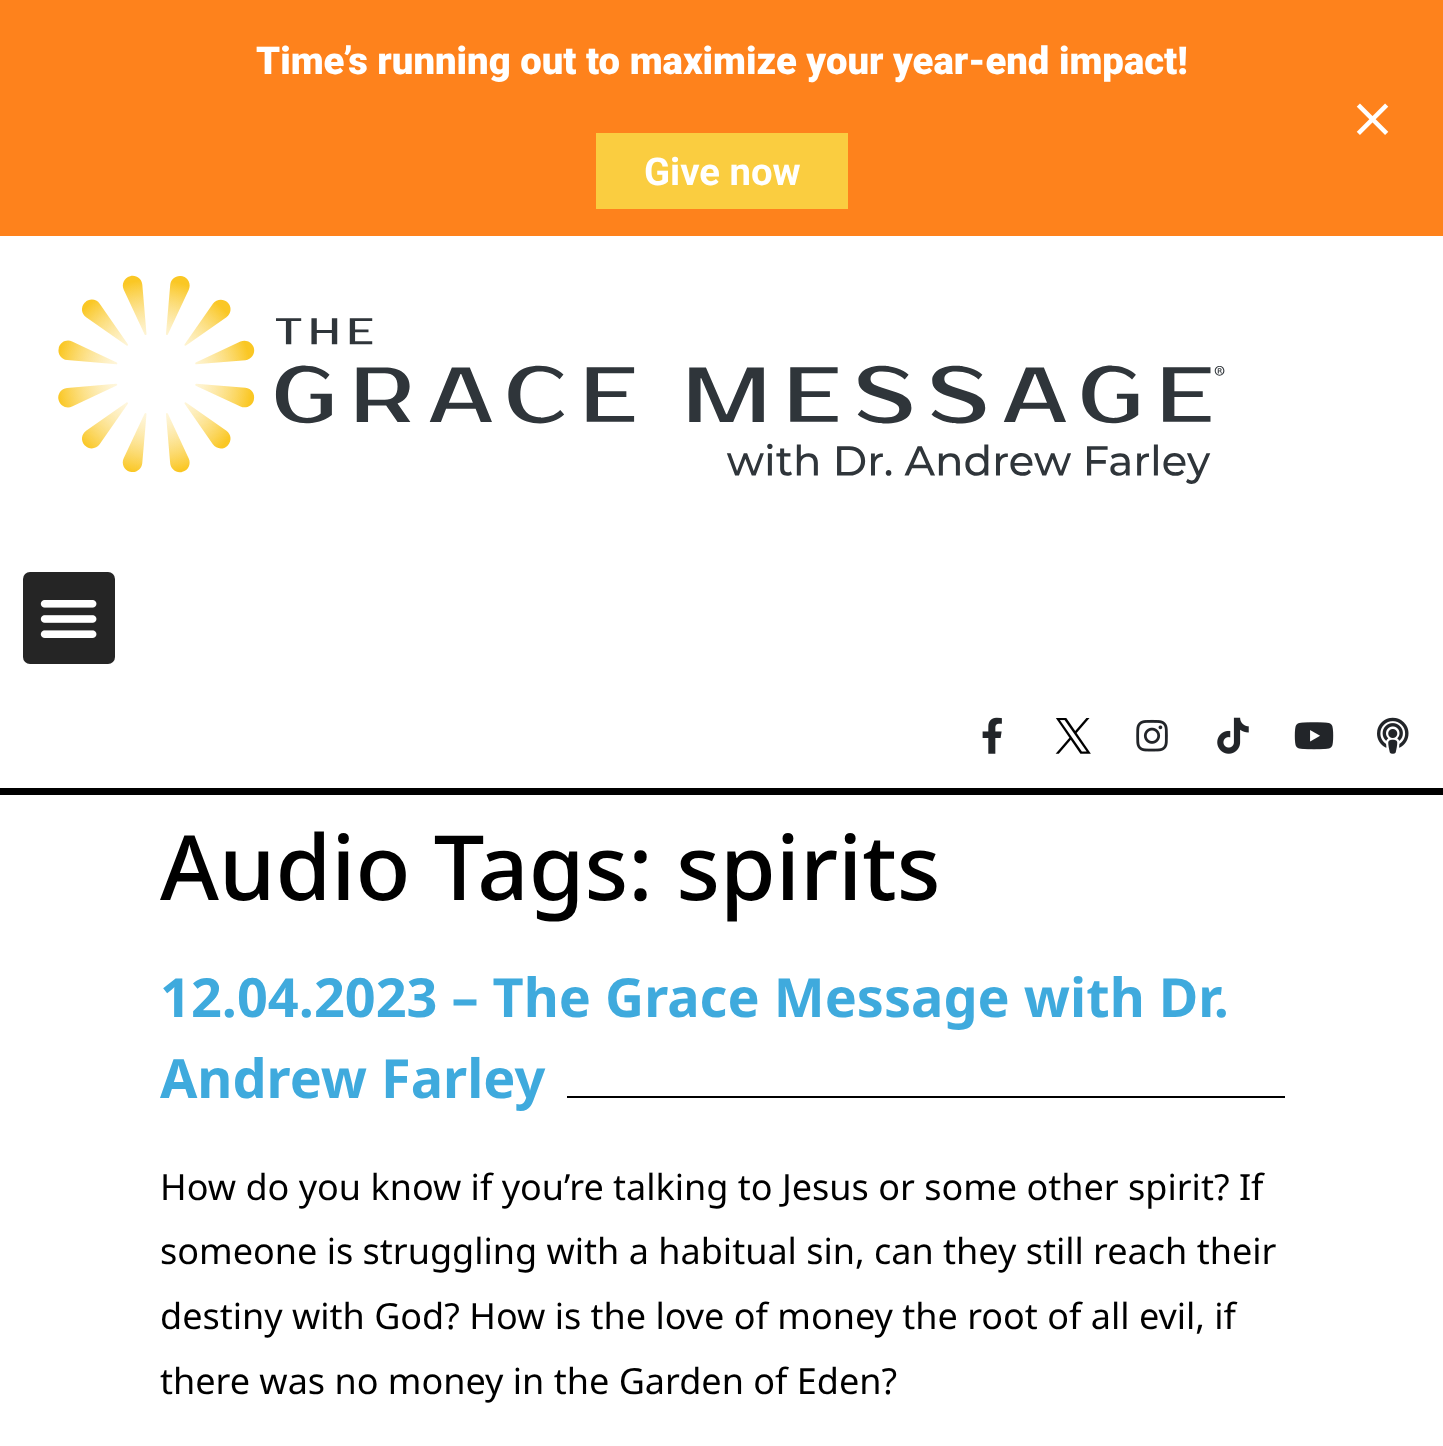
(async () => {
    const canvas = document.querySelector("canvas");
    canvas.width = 1443;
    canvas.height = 1446;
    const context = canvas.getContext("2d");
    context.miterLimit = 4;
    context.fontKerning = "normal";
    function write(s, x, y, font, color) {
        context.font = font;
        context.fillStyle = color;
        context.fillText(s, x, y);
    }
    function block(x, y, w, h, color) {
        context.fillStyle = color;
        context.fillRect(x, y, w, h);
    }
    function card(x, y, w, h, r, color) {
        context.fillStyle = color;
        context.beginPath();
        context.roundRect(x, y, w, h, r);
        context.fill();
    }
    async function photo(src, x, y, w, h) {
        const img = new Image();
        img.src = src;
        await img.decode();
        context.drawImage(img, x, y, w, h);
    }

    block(0, 0, 1443, 1446, "rgb(255, 255, 255)");
    block(0, 0, 1443, 236, "rgb(254, 130, 28)");
    write("Time’s running out to maximize your year-end impact!", 256, 74, "900 38.25px Roboto", "rgb(255, 255, 255)");
    block(596, 133, 252, 76, "rgb(250, 205, 64)");
    write("Give now", 644, 185, "bold 38.25px Roboto", "rgb(255, 255, 255)");
    await photo("media/1.png", 1356, 103, 33, 32);
    await photo("media/2.png", 58, 275, 1167, 209);
    block(0, 788, 1443, 7, "rgb(0, 0, 0)");
    card(23, 572, 92, 92, 7, "rgb(37, 37, 37)");
    await photo("media/3.png", 40, 600, 57, 38);
    await photo("media/4.png", 982, 717, 20, 37);
    await photo("media/5.png", 1055, 718, 36, 36);
    await photo("media/6.png", 1136, 719, 32, 33);
    await photo("media/7.png", 1217, 717, 32, 37);
    await photo("media/8.png", 1294, 722, 40, 28);
    await photo("media/9.png", 1377, 717, 32, 37);
    write("Audio Tags: spirits", 160, 900, "500 90px Noto Sans", "rgb(0, 0, 0)");
    write("12.04.2023 – The Grace Message with Dr.", 160, 1017, "bold 54px Noto Sans", "rgb(63, 170, 221)");
    write("Andrew Farley", 160, 1098, "bold 54px Noto Sans", "rgb(63, 170, 221)");
    block(567, 1096, 718, 2, "rgb(0, 0, 0)");
    write("How do you know if you’re talking to Jesus or some other spirit? If", 160, 1200, "36px Noto Sans", "rgb(0, 0, 0)");
    write("someone is struggling with a habitual sin, can they still reach their", 160, 1264, "36px Noto Sans", "rgb(0, 0, 0)");
    write("destiny with God? How is the love of money the root of all evil, if", 160, 1329, "36px Noto Sans", "rgb(0, 0, 0)");
    write("there was no money in the Garden of Eden?", 160, 1394, "36px Noto Sans", "rgb(0, 0, 0)");
})();
